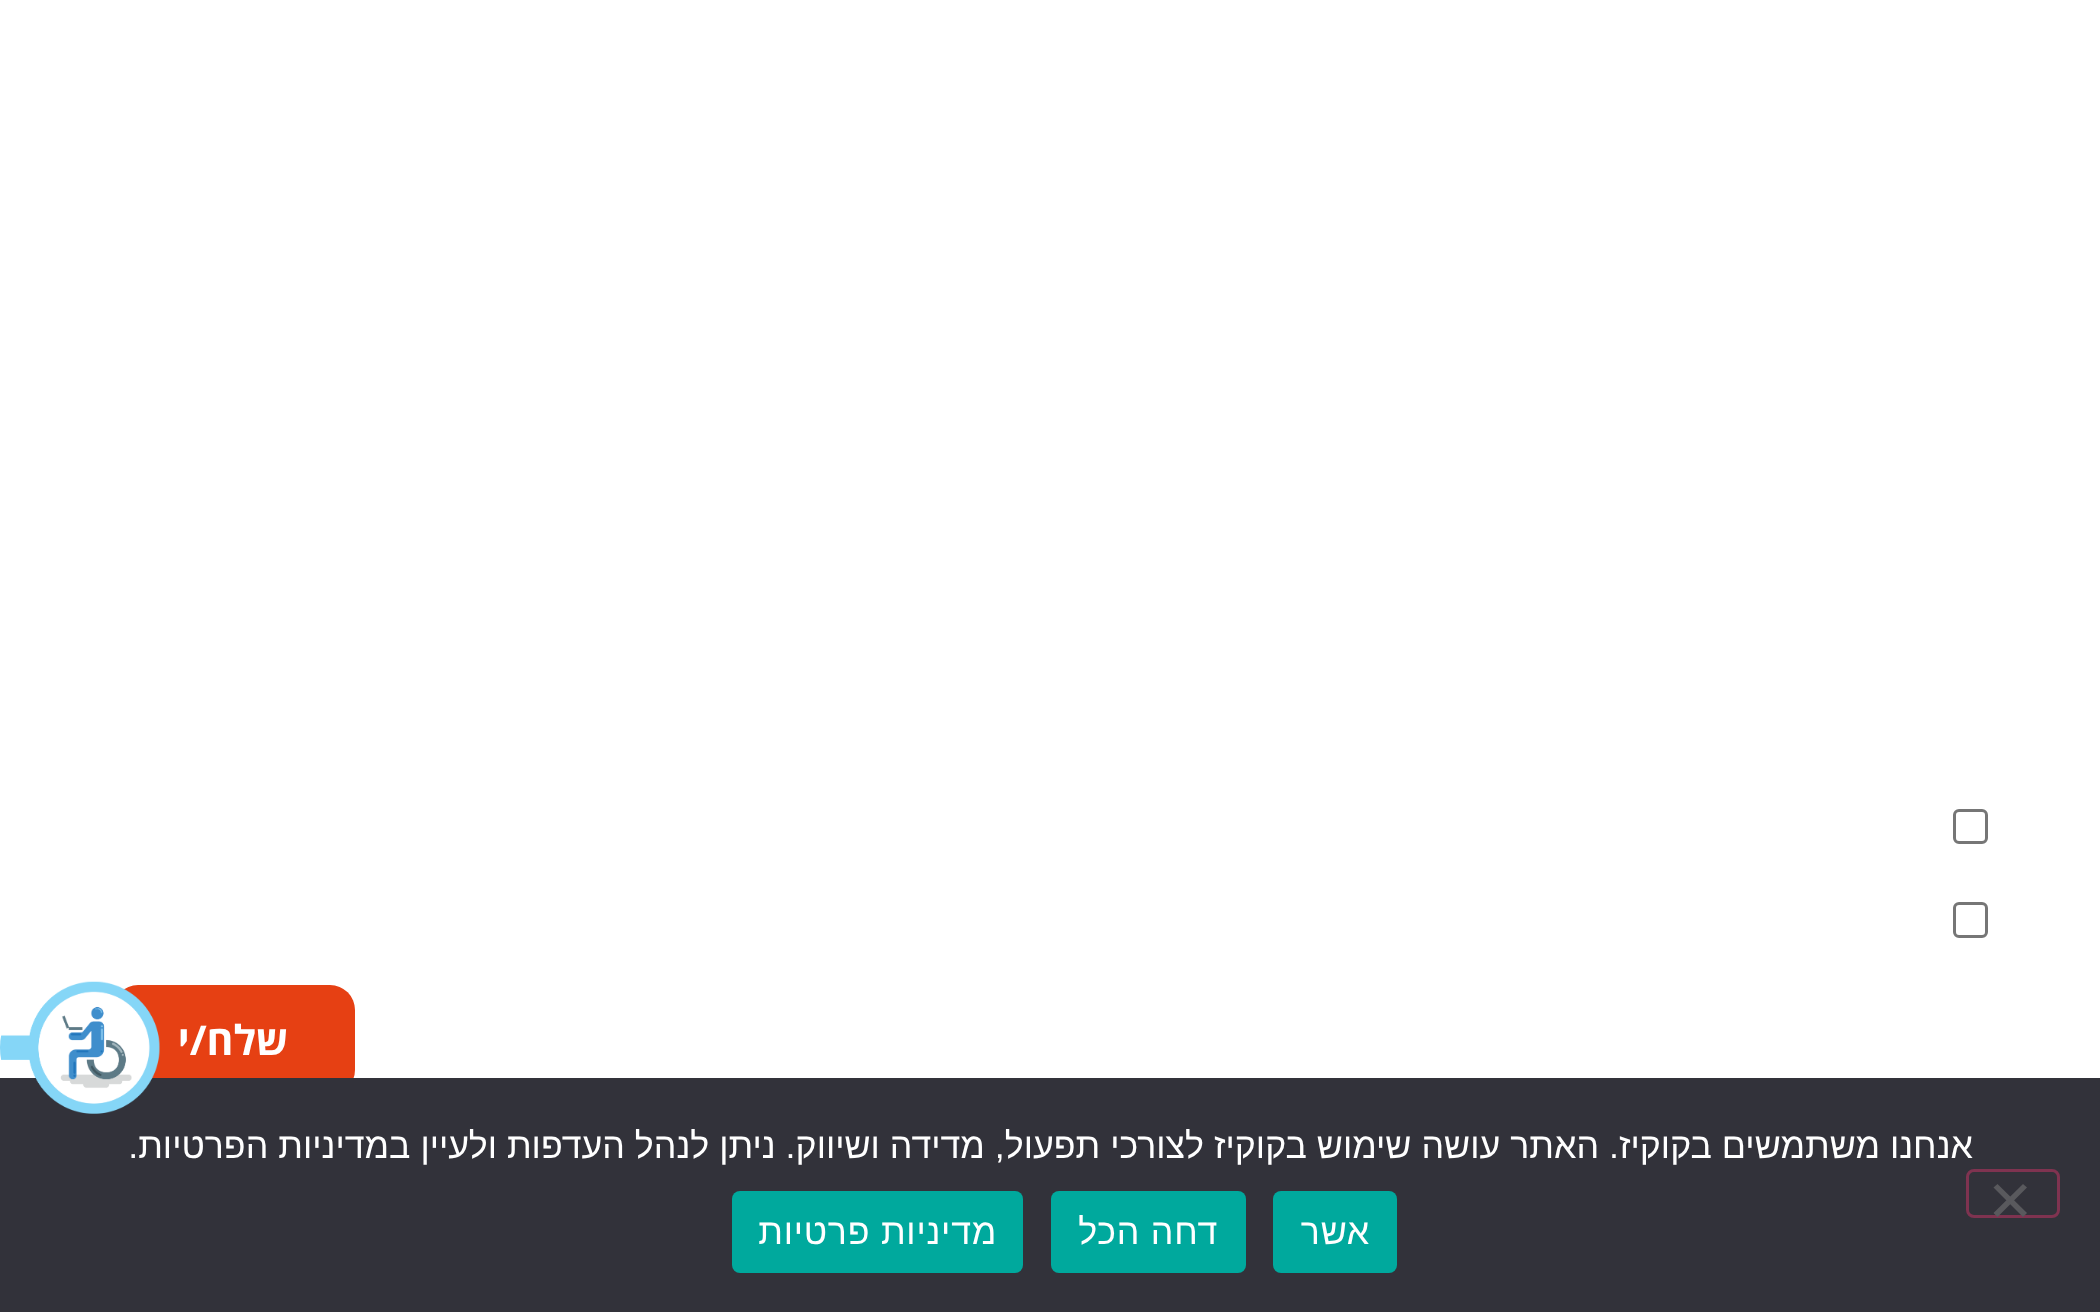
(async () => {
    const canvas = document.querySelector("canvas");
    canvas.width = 2100;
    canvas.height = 1312;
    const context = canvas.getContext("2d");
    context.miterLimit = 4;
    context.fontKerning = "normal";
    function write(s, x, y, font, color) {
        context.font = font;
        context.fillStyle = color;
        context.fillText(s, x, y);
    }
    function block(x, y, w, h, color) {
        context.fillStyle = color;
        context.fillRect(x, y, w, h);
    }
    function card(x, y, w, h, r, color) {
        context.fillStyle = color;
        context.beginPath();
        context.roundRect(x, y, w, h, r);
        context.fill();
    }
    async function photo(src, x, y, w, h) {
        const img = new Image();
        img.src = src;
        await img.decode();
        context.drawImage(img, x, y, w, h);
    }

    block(0, 0, 2100, 1312, "rgb(255, 255, 255)");
    context.beginPath();
    context.roundRect(1954.5, 810.5, 32, 32, 4.5);
    context.strokeStyle = "rgb(118, 118, 118)";
    context.lineWidth = 3;
    context.stroke();
    context.beginPath();
    context.roundRect(1954.5, 903.5, 32, 33, 4.5);
    context.stroke();
    card(113, 985, 242, 110, 25, "rgb(230, 64, 19)");
    context.direction = "rtl";
    write("שלח/י", 288, 1055, "bold 41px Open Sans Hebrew", "rgb(255, 255, 255)");
    block(0, 1078, 2100, 234, "rgb(50, 50, 58)");
    await photo("media/1.png", 0, 981, 160, 133);
    write("אנחנו משתמשים בקוקיז. האתר עושה שימוש בקוקיז לצורכי תפעול, מדידה ושיווק. ניתן לנהל העדפות ולעיין במדיניות הפרטיות.", 1973, 1158, "35.75px Liberation Sans", "rgb(255, 255, 255)");
    context.beginPath();
    context.roundRect(1967.5, 1170.5, 91, 46, 6.5);
    context.strokeStyle = "rgb(127, 51, 80)";
    context.stroke();
    context.fillStyle = "rgb(89, 89, 93)";
    context.beginPath();
    context.moveTo(2023, 1184);
    context.lineTo(2027, 1187.5);
    context.lineTo(1997.5, 1217);
    context.lineTo(1993.5, 1213);
    context.closePath();
    context.fill();
    context.beginPath();
    context.moveTo(1993.5, 1187.5);
    context.lineTo(1997.5, 1184);
    context.lineTo(2027, 1213);
    context.lineTo(2023, 1217);
    context.closePath();
    context.fill();
    card(1273, 1191, 124, 82, 8, "rgb(0, 169, 157)");
    context.letterSpacing = "0.75px";
    write("אשר", 1370, 1244, "35.75px Liberation Sans", "rgb(255, 255, 255)");
    card(1051, 1191, 195, 82, 8, "rgb(0, 169, 157)");
    write("דחה הכל", 1218, 1244, "35.75px Liberation Sans", "rgb(255, 255, 255)");
    card(732, 1191, 291, 82, 8, "rgb(0, 169, 157)");
    write("מדיניות פרטיות", 997, 1244, "35.75px Liberation Sans", "rgb(255, 255, 255)");
})();
